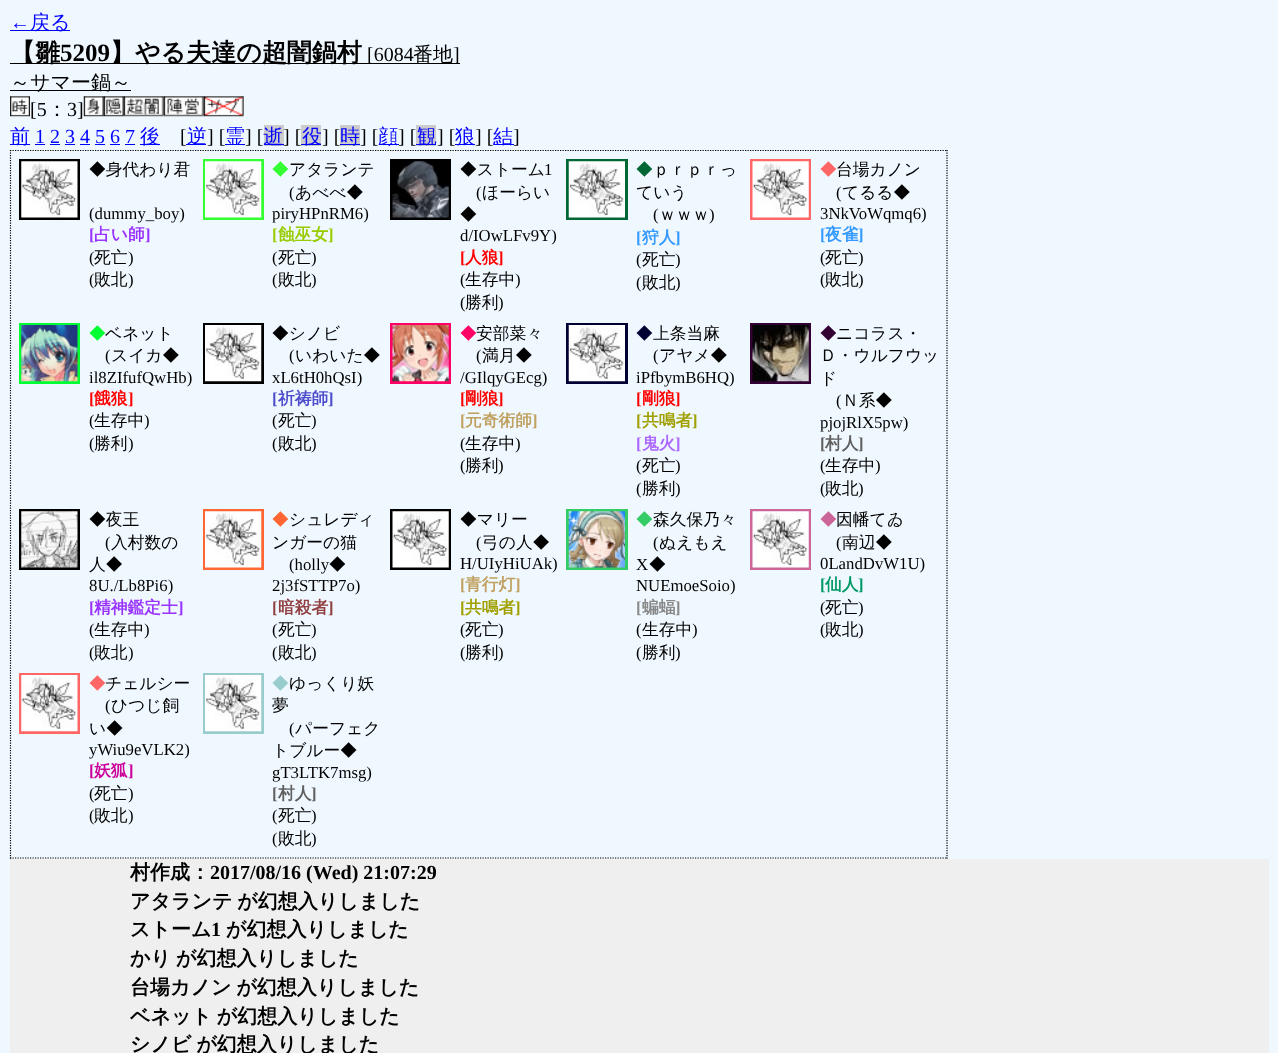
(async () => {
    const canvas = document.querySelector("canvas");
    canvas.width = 1278;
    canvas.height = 1053;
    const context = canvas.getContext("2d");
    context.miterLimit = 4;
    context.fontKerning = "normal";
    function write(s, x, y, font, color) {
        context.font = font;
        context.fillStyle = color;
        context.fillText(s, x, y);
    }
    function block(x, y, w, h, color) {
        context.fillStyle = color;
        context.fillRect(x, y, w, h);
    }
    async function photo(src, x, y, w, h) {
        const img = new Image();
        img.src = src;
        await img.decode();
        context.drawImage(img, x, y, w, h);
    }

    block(0, 0, 1278, 1053, "rgb(240, 248, 255)");
    write("←", 10, 29, "20px Liberation Serif", "rgb(0, 0, 255)");
    block(10, 30, 60, 1, "rgb(0, 0, 255)");
    write("戻る", 30, 29, "500 20px WenQuanYi Zen Hei", "rgb(0, 0, 255)");
    block(10, 63, 450, 1, "rgb(0, 0, 0)");
    write("【雛", 10, 61, "bold 25px WenQuanYi Zen Hei", "rgb(0, 0, 0)");
    write("5209", 60, 61, "bold 25px Liberation Serif", "rgb(0, 0, 0)");
    write("】やる夫達の超闇鍋村", 110, 61, "bold 25px WenQuanYi Zen Hei", "rgb(0, 0, 0)");
    write("[6084", 367, 61, "20px Liberation Serif", "rgb(0, 0, 0)");
    write("番地", 413, 61, "500 20px WenQuanYi Zen Hei", "rgb(0, 0, 0)");
    write("]", 453, 61, "20px Liberation Serif", "rgb(0, 0, 0)");
    block(10, 90, 121, 1, "rgb(0, 0, 0)");
    write("～サマー鍋～", 10, 89, "500 20px WenQuanYi Zen Hei", "rgb(0, 0, 0)");
    await photo("media/1.png", 10, 96, 20, 21);
    write("[5", 30, 116, "20px Liberation Serif", "rgb(0, 0, 0)");
    write("：", 47, 116, "500 20px WenQuanYi Zen Hei", "rgb(0, 0, 0)");
    write("3]", 67, 116, "20px Liberation Serif", "rgb(0, 0, 0)");
    await photo("media/2.png", 83, 96, 21, 21);
    await photo("media/3.png", 103, 96, 21, 21);
    await photo("media/4.png", 123, 96, 41, 21);
    await photo("media/5.png", 163, 96, 41, 21);
    await photo("media/6.png", 203, 96, 41, 21);
    block(10, 144, 20, 1, "rgb(0, 0, 255)");
    write("前", 10, 143, "500 20px WenQuanYi Zen Hei", "rgb(0, 0, 255)");
    write("1 2 3 4 5 6 7", 35, 143, "20px Liberation Serif", "rgb(0, 0, 255)");
    block(35, 144, 10, 1, "rgb(0, 0, 255)");
    block(140, 144, 20, 1, "rgb(0, 0, 255)");
    write("後", 140, 143, "500 20px WenQuanYi Zen Hei", "rgb(0, 0, 255)");
    write("[", 180, 143, "20px Liberation Serif", "rgb(0, 0, 0)");
    block(186, 144, 20, 1, "rgb(0, 0, 255)");
    write("逆", 187, 143, "500 20px WenQuanYi Zen Hei", "rgb(0, 0, 255)");
    write("] [", 207, 143, "20px Liberation Serif", "rgb(0, 0, 0)");
    block(225, 144, 20, 1, "rgb(0, 0, 255)");
    write("霊", 225, 143, "500 20px WenQuanYi Zen Hei", "rgb(0, 0, 255)");
    write("] [", 245, 143, "20px Liberation Serif", "rgb(0, 0, 0)");
    block(264, 125, 20, 21, "rgb(204, 204, 204)");
    block(264, 144, 20, 1, "rgb(0, 0, 255)");
    write("逝", 263, 143, "500 20px WenQuanYi Zen Hei", "rgb(0, 0, 255)");
    write("] [", 283, 143, "20px Liberation Serif", "rgb(0, 0, 0)");
    block(301, 125, 20, 21, "rgb(204, 204, 204)");
    block(301, 144, 20, 1, "rgb(0, 0, 255)");
    write("役", 302, 143, "500 20px WenQuanYi Zen Hei", "rgb(0, 0, 255)");
    write("] [", 322, 143, "20px Liberation Serif", "rgb(0, 0, 0)");
    block(340, 125, 20, 21, "rgb(204, 204, 204)");
    block(340, 144, 20, 1, "rgb(0, 0, 255)");
    write("時", 340, 143, "500 20px WenQuanYi Zen Hei", "rgb(0, 0, 255)");
    write("] [", 360, 143, "20px Liberation Serif", "rgb(0, 0, 0)");
    block(379, 144, 20, 1, "rgb(0, 0, 255)");
    write("顔", 378, 143, "500 20px WenQuanYi Zen Hei", "rgb(0, 0, 255)");
    write("] [", 398, 143, "20px Liberation Serif", "rgb(0, 0, 0)");
    block(416, 125, 20, 21, "rgb(204, 204, 204)");
    block(416, 144, 20, 1, "rgb(0, 0, 255)");
    write("観", 417, 143, "500 20px WenQuanYi Zen Hei", "rgb(0, 0, 255)");
    write("] [", 437, 143, "20px Liberation Serif", "rgb(0, 0, 0)");
    block(455, 144, 20, 1, "rgb(0, 0, 255)");
    write("狼", 455, 143, "500 20px WenQuanYi Zen Hei", "rgb(0, 0, 255)");
    write("] [", 475, 143, "20px Liberation Serif", "rgb(0, 0, 0)");
    block(494, 144, 20, 1, "rgb(0, 0, 255)");
    write("結", 493, 143, "500 20px WenQuanYi Zen Hei", "rgb(0, 0, 255)");
    write("]", 513, 143, "20px Liberation Serif", "rgb(0, 0, 0)");
    block(50, 144, 10, 1, "rgb(0, 0, 255)");
    block(65, 144, 10, 1, "rgb(0, 0, 255)");
    block(80, 144, 10, 1, "rgb(0, 0, 255)");
    block(95, 144, 10, 1, "rgb(0, 0, 255)");
    block(110, 144, 10, 1, "rgb(0, 0, 255)");
    block(125, 144, 10, 1, "rgb(0, 0, 255)");
    context.beginPath();
    context.moveTo(10, 150.5);
    context.lineTo(947.5, 150.5);
    context.strokeStyle = "rgb(0, 0, 0)";
    context.lineWidth = 1.2;
    context.setLineDash([1.25, 1.25]);
    context.stroke();
    context.beginPath();
    context.moveTo(947, 150);
    context.lineTo(947, 859);
    context.stroke();
    context.beginPath();
    context.moveTo(10, 858);
    context.lineTo(947.5, 858);
    context.stroke();
    context.beginPath();
    context.moveTo(10.5, 150);
    context.lineTo(10.5, 859);
    context.stroke();
    context.lineWidth = 3;
    context.setLineDash([]);
    context.strokeRect(20.5, 160.5, 58, 58);
    await photo("media/7.png", 21, 161, 57, 57);
    write("◆身代わり君", 89, 175, "500 16.75px WenQuanYi Zen Hei", "rgb(0, 0, 0)");
    write("(dummy_boy)", 89, 219, "16.75px Liberation Serif", "rgb(0, 0, 0)");
    write("[", 89, 240, "bold 16.75px Liberation Serif", "rgb(153, 51, 255)");
    write("占い師", 94, 240, "bold 16.75px WenQuanYi Zen Hei", "rgb(153, 51, 255)");
    write("]", 145, 240, "bold 16.75px Liberation Serif", "rgb(153, 51, 255)");
    write("(", 89, 263, "16.75px Liberation Serif", "rgb(0, 0, 0)");
    write("死亡", 94, 263, "500 16.75px WenQuanYi Zen Hei", "rgb(0, 0, 0)");
    write(")", 128, 263, "16.75px Liberation Serif", "rgb(0, 0, 0)");
    write("(", 89, 285, "16.75px Liberation Serif", "rgb(0, 0, 0)");
    write("敗北", 94, 285, "500 16.75px WenQuanYi Zen Hei", "rgb(0, 0, 0)");
    write(")", 128, 285, "16.75px Liberation Serif", "rgb(0, 0, 0)");
    context.strokeStyle = "rgb(51, 255, 51)";
    context.strokeRect(204.5, 160.5, 58, 58);
    await photo("media/8.png", 205, 161, 57, 57);
    write("◆", 272, 175, "500 16.75px WenQuanYi Zen Hei", "rgb(51, 255, 51)");
    write("アタランテ", 289, 175, "500 16.75px WenQuanYi Zen Hei", "rgb(0, 0, 0)");
    write("(", 289, 198, "16.75px Liberation Serif", "rgb(0, 0, 0)");
    write("あべべ◆", 295, 198, "500 16.75px WenQuanYi Zen Hei", "rgb(0, 0, 0)");
    write("piryHPnRM6)", 272, 219, "16.75px Liberation Serif", "rgb(0, 0, 0)");
    write("[", 272, 240, "bold 16.75px Liberation Serif", "rgb(153, 204, 0)");
    write("蝕巫女", 278, 240, "bold 16.75px WenQuanYi Zen Hei", "rgb(153, 204, 0)");
    write("]", 328, 240, "bold 16.75px Liberation Serif", "rgb(153, 204, 0)");
    write("(", 272, 263, "16.75px Liberation Serif", "rgb(0, 0, 0)");
    write("死亡", 278, 263, "500 16.75px WenQuanYi Zen Hei", "rgb(0, 0, 0)");
    write(")", 311, 263, "16.75px Liberation Serif", "rgb(0, 0, 0)");
    write("(", 272, 285, "16.75px Liberation Serif", "rgb(0, 0, 0)");
    write("敗北", 278, 285, "500 16.75px WenQuanYi Zen Hei", "rgb(0, 0, 0)");
    write(")", 311, 285, "16.75px Liberation Serif", "rgb(0, 0, 0)");
    context.strokeStyle = "rgb(0, 0, 0)";
    context.strokeRect(391.5, 160.5, 58, 58);
    await photo("media/9.png", 392, 161, 57, 57);
    write("◆ストーム", 460, 175, "500 16.75px WenQuanYi Zen Hei", "rgb(0, 0, 0)");
    write("1", 544, 175, "16.75px Liberation Serif", "rgb(0, 0, 0)");
    write("(", 476, 198, "16.75px Liberation Serif", "rgb(0, 0, 0)");
    write("ほーらい", 482, 198, "500 16.75px WenQuanYi Zen Hei", "rgb(0, 0, 0)");
    write("◆", 460, 220, "500 16.75px WenQuanYi Zen Hei", "rgb(0, 0, 0)");
    write("d/IOwLFv9Y)", 460, 241, "16.75px Liberation Serif", "rgb(0, 0, 0)");
    write("[", 460, 263, "bold 16.75px Liberation Serif", "rgb(255, 0, 0)");
    write("人狼", 465, 263, "bold 16.75px WenQuanYi Zen Hei", "rgb(255, 0, 0)");
    write("]", 498, 263, "bold 16.75px Liberation Serif", "rgb(255, 0, 0)");
    write("(", 460, 285, "16.75px Liberation Serif", "rgb(0, 0, 0)");
    write("生存中", 465, 285, "500 16.75px WenQuanYi Zen Hei", "rgb(0, 0, 0)");
    write(")", 515, 285, "16.75px Liberation Serif", "rgb(0, 0, 0)");
    write("(", 460, 308, "16.75px Liberation Serif", "rgb(0, 0, 0)");
    write("勝利", 465, 308, "500 16.75px WenQuanYi Zen Hei", "rgb(0, 0, 0)");
    write(")", 498, 308, "16.75px Liberation Serif", "rgb(0, 0, 0)");
    context.strokeStyle = "rgb(0, 102, 51)";
    context.strokeRect(567.5, 160.5, 59, 58);
    await photo("media/10.png", 568, 161, 57, 57);
    write("◆", 636, 175, "500 16.75px WenQuanYi Zen Hei", "rgb(0, 102, 51)");
    write("ｐｒｐｒっ", 653, 175, "500 16.75px WenQuanYi Zen Hei", "rgb(0, 0, 0)");
    write("ていう", 636, 198, "500 16.75px WenQuanYi Zen Hei", "rgb(0, 0, 0)");
    write("(", 653, 220, "16.75px Liberation Serif", "rgb(0, 0, 0)");
    write("ｗｗｗ", 659, 220, "500 16.75px WenQuanYi Zen Hei", "rgb(0, 0, 0)");
    write(")", 709, 220, "16.75px Liberation Serif", "rgb(0, 0, 0)");
    write("[", 636, 243, "bold 16.75px Liberation Serif", "rgb(51, 153, 255)");
    write("狩人", 642, 243, "bold 16.75px WenQuanYi Zen Hei", "rgb(51, 153, 255)");
    write("]", 675, 243, "bold 16.75px Liberation Serif", "rgb(51, 153, 255)");
    write("(", 636, 265, "16.75px Liberation Serif", "rgb(0, 0, 0)");
    write("死亡", 642, 265, "500 16.75px WenQuanYi Zen Hei", "rgb(0, 0, 0)");
    write(")", 675, 265, "16.75px Liberation Serif", "rgb(0, 0, 0)");
    write("(", 636, 288, "16.75px Liberation Serif", "rgb(0, 0, 0)");
    write("敗北", 642, 288, "500 16.75px WenQuanYi Zen Hei", "rgb(0, 0, 0)");
    write(")", 675, 288, "16.75px Liberation Serif", "rgb(0, 0, 0)");
    context.strokeStyle = "rgb(255, 102, 102)";
    context.strokeRect(751.5, 160.5, 58, 58);
    await photo("media/11.png", 752, 161, 57, 57);
    write("◆", 820, 175, "500 16.75px WenQuanYi Zen Hei", "rgb(255, 102, 102)");
    write("台場カノン", 836, 175, "500 16.75px WenQuanYi Zen Hei", "rgb(0, 0, 0)");
    write("(", 836, 198, "16.75px Liberation Serif", "rgb(0, 0, 0)");
    write("てるる◆", 842, 198, "500 16.75px WenQuanYi Zen Hei", "rgb(0, 0, 0)");
    write("3NkVoWqmq6)", 820, 219, "16.75px Liberation Serif", "rgb(0, 0, 0)");
    write("[", 820, 240, "bold 16.75px Liberation Serif", "rgb(51, 153, 255)");
    write("夜雀", 825, 240, "bold 16.75px WenQuanYi Zen Hei", "rgb(51, 153, 255)");
    write("]", 858, 240, "bold 16.75px Liberation Serif", "rgb(51, 153, 255)");
    write("(", 820, 263, "16.75px Liberation Serif", "rgb(0, 0, 0)");
    write("死亡", 825, 263, "500 16.75px WenQuanYi Zen Hei", "rgb(0, 0, 0)");
    write(")", 858, 263, "16.75px Liberation Serif", "rgb(0, 0, 0)");
    write("(", 820, 285, "16.75px Liberation Serif", "rgb(0, 0, 0)");
    write("敗北", 825, 285, "500 16.75px WenQuanYi Zen Hei", "rgb(0, 0, 0)");
    write(")", 858, 285, "16.75px Liberation Serif", "rgb(0, 0, 0)");
    context.strokeStyle = "rgb(0, 255, 51)";
    context.strokeRect(20.5, 324.5, 58, 58);
    await photo("media/12.png", 21, 325, 57, 57);
    write("◆", 89, 339, "500 16.75px WenQuanYi Zen Hei", "rgb(0, 255, 51)");
    write("ベネット", 105, 339, "500 16.75px WenQuanYi Zen Hei", "rgb(0, 0, 0)");
    write("(", 105, 361, "16.75px Liberation Serif", "rgb(0, 0, 0)");
    write("スイカ◆", 111, 361, "500 16.75px WenQuanYi Zen Hei", "rgb(0, 0, 0)");
    write("il8ZIfufQwHb)", 89, 383, "16.75px Liberation Serif", "rgb(0, 0, 0)");
    write("[", 89, 404, "bold 16.75px Liberation Serif", "rgb(255, 0, 0)");
    write("餓狼", 94, 404, "bold 16.75px WenQuanYi Zen Hei", "rgb(255, 0, 0)");
    write("]", 128, 404, "bold 16.75px Liberation Serif", "rgb(255, 0, 0)");
    write("(", 89, 426, "16.75px Liberation Serif", "rgb(0, 0, 0)");
    write("生存中", 94, 426, "500 16.75px WenQuanYi Zen Hei", "rgb(0, 0, 0)");
    write(")", 144, 426, "16.75px Liberation Serif", "rgb(0, 0, 0)");
    write("(", 89, 449, "16.75px Liberation Serif", "rgb(0, 0, 0)");
    write("勝利", 94, 449, "500 16.75px WenQuanYi Zen Hei", "rgb(0, 0, 0)");
    write(")", 128, 449, "16.75px Liberation Serif", "rgb(0, 0, 0)");
    context.strokeStyle = "rgb(0, 0, 0)";
    context.strokeRect(204.5, 324.5, 58, 58);
    await photo("media/13.png", 205, 325, 57, 57);
    write("◆シノビ", 272, 339, "500 16.75px WenQuanYi Zen Hei", "rgb(0, 0, 0)");
    write("(", 289, 361, "16.75px Liberation Serif", "rgb(0, 0, 0)");
    write("いわいた◆", 295, 361, "500 16.75px WenQuanYi Zen Hei", "rgb(0, 0, 0)");
    write("xL6tH0hQsI)", 272, 383, "16.75px Liberation Serif", "rgb(0, 0, 0)");
    write("[", 272, 404, "bold 16.75px Liberation Serif", "rgb(77, 77, 204)");
    write("祈祷師", 278, 404, "bold 16.75px WenQuanYi Zen Hei", "rgb(77, 77, 204)");
    write("]", 328, 404, "bold 16.75px Liberation Serif", "rgb(77, 77, 204)");
    write("(", 272, 426, "16.75px Liberation Serif", "rgb(0, 0, 0)");
    write("死亡", 278, 426, "500 16.75px WenQuanYi Zen Hei", "rgb(0, 0, 0)");
    write(")", 311, 426, "16.75px Liberation Serif", "rgb(0, 0, 0)");
    write("(", 272, 449, "16.75px Liberation Serif", "rgb(0, 0, 0)");
    write("敗北", 278, 449, "500 16.75px WenQuanYi Zen Hei", "rgb(0, 0, 0)");
    write(")", 311, 449, "16.75px Liberation Serif", "rgb(0, 0, 0)");
    context.strokeStyle = "rgb(255, 0, 102)";
    context.strokeRect(391.5, 324.5, 58, 58);
    await photo("media/14.png", 392, 325, 57, 57);
    write("◆", 460, 339, "500 16.75px WenQuanYi Zen Hei", "rgb(255, 0, 102)");
    write("安部菜々", 476, 339, "500 16.75px WenQuanYi Zen Hei", "rgb(0, 0, 0)");
    write("(", 476, 361, "16.75px Liberation Serif", "rgb(0, 0, 0)");
    write("満月◆", 482, 361, "500 16.75px WenQuanYi Zen Hei", "rgb(0, 0, 0)");
    write("/GIlqyGEcg)", 460, 383, "16.75px Liberation Serif", "rgb(0, 0, 0)");
    write("[", 460, 404, "bold 16.75px Liberation Serif", "rgb(255, 0, 0)");
    write("剛狼", 465, 404, "bold 16.75px WenQuanYi Zen Hei", "rgb(255, 0, 0)");
    write("]", 498, 404, "bold 16.75px Liberation Serif", "rgb(255, 0, 0)");
    write("[", 460, 426, "bold 16.75px Liberation Serif", "rgb(192, 160, 96)");
    write("元奇術師", 465, 426, "bold 16.75px WenQuanYi Zen Hei", "rgb(192, 160, 96)");
    write("]", 532, 426, "bold 16.75px Liberation Serif", "rgb(192, 160, 96)");
    write("(", 460, 449, "16.75px Liberation Serif", "rgb(0, 0, 0)");
    write("生存中", 465, 449, "500 16.75px WenQuanYi Zen Hei", "rgb(0, 0, 0)");
    write(")", 515, 449, "16.75px Liberation Serif", "rgb(0, 0, 0)");
    write("(", 460, 471, "16.75px Liberation Serif", "rgb(0, 0, 0)");
    write("勝利", 465, 471, "500 16.75px WenQuanYi Zen Hei", "rgb(0, 0, 0)");
    write(")", 498, 471, "16.75px Liberation Serif", "rgb(0, 0, 0)");
    context.strokeStyle = "rgb(0, 0, 51)";
    context.strokeRect(567.5, 324.5, 59, 58);
    await photo("media/15.png", 568, 325, 57, 57);
    write("◆", 636, 339, "500 16.75px WenQuanYi Zen Hei", "rgb(0, 0, 51)");
    write("上条当麻", 653, 339, "500 16.75px WenQuanYi Zen Hei", "rgb(0, 0, 0)");
    write("(", 653, 361, "16.75px Liberation Serif", "rgb(0, 0, 0)");
    write("アヤメ◆", 659, 361, "500 16.75px WenQuanYi Zen Hei", "rgb(0, 0, 0)");
    write("iPfbymB6HQ)", 636, 383, "16.75px Liberation Serif", "rgb(0, 0, 0)");
    write("[", 636, 404, "bold 16.75px Liberation Serif", "rgb(255, 0, 0)");
    write("剛狼", 642, 404, "bold 16.75px WenQuanYi Zen Hei", "rgb(255, 0, 0)");
    write("]", 675, 404, "bold 16.75px Liberation Serif", "rgb(255, 0, 0)");
    write("[", 636, 426, "bold 16.75px Liberation Serif", "rgb(160, 160, 0)");
    write("共鳴者", 642, 426, "bold 16.75px WenQuanYi Zen Hei", "rgb(160, 160, 0)");
    write("]", 692, 426, "bold 16.75px Liberation Serif", "rgb(160, 160, 0)");
    write("[", 636, 449, "bold 16.75px Liberation Serif", "rgb(170, 102, 255)");
    write("鬼火", 642, 449, "bold 16.75px WenQuanYi Zen Hei", "rgb(170, 102, 255)");
    write("]", 675, 449, "bold 16.75px Liberation Serif", "rgb(170, 102, 255)");
    write("(", 636, 471, "16.75px Liberation Serif", "rgb(0, 0, 0)");
    write("死亡", 642, 471, "500 16.75px WenQuanYi Zen Hei", "rgb(0, 0, 0)");
    write(")", 675, 471, "16.75px Liberation Serif", "rgb(0, 0, 0)");
    write("(", 636, 494, "16.75px Liberation Serif", "rgb(0, 0, 0)");
    write("勝利", 642, 494, "500 16.75px WenQuanYi Zen Hei", "rgb(0, 0, 0)");
    write(")", 675, 494, "16.75px Liberation Serif", "rgb(0, 0, 0)");
    context.strokeStyle = "rgb(51, 0, 51)";
    context.strokeRect(751.5, 324.5, 58, 58);
    await photo("media/16.png", 752, 325, 57, 57);
    write("◆", 820, 339, "500 16.75px WenQuanYi Zen Hei", "rgb(51, 0, 51)");
    write("ニコラス・", 836, 339, "500 16.75px WenQuanYi Zen Hei", "rgb(0, 0, 0)");
    write("Ｄ・ウルフウッ", 820, 361, "500 16.75px WenQuanYi Zen Hei", "rgb(0, 0, 0)");
    write("ド", 820, 384, "500 16.75px WenQuanYi Zen Hei", "rgb(0, 0, 0)");
    write("(", 836, 406, "16.75px Liberation Serif", "rgb(0, 0, 0)");
    write("Ｎ系◆", 842, 406, "500 16.75px WenQuanYi Zen Hei", "rgb(0, 0, 0)");
    write("pjojRlX5pw)", 820, 428, "16.75px Liberation Serif", "rgb(0, 0, 0)");
    write("[", 820, 449, "bold 16.75px Liberation Serif", "rgb(96, 96, 96)");
    write("村人", 825, 449, "bold 16.75px WenQuanYi Zen Hei", "rgb(96, 96, 96)");
    write("]", 858, 449, "bold 16.75px Liberation Serif", "rgb(96, 96, 96)");
    write("(", 820, 471, "16.75px Liberation Serif", "rgb(0, 0, 0)");
    write("生存中", 825, 471, "500 16.75px WenQuanYi Zen Hei", "rgb(0, 0, 0)");
    write(")", 875, 471, "16.75px Liberation Serif", "rgb(0, 0, 0)");
    write("(", 820, 494, "16.75px Liberation Serif", "rgb(0, 0, 0)");
    write("敗北", 825, 494, "500 16.75px WenQuanYi Zen Hei", "rgb(0, 0, 0)");
    write(")", 858, 494, "16.75px Liberation Serif", "rgb(0, 0, 0)");
    context.strokeStyle = "rgb(0, 0, 0)";
    context.strokeRect(20.5, 510.5, 58, 58);
    await photo("media/17.png", 21, 511, 57, 57);
    write("◆夜王", 89, 525, "500 16.75px WenQuanYi Zen Hei", "rgb(0, 0, 0)");
    write("(", 105, 548, "16.75px Liberation Serif", "rgb(0, 0, 0)");
    write("入村数の", 111, 548, "500 16.75px WenQuanYi Zen Hei", "rgb(0, 0, 0)");
    write("人◆", 89, 570, "500 16.75px WenQuanYi Zen Hei", "rgb(0, 0, 0)");
    write("8U./Lb8Pi6)", 89, 591, "16.75px Liberation Serif", "rgb(0, 0, 0)");
    write("[", 89, 613, "bold 16.75px Liberation Serif", "rgb(153, 51, 255)");
    write("精神鑑定士", 94, 613, "bold 16.75px WenQuanYi Zen Hei", "rgb(153, 51, 255)");
    write("]", 178, 613, "bold 16.75px Liberation Serif", "rgb(153, 51, 255)");
    write("(", 89, 635, "16.75px Liberation Serif", "rgb(0, 0, 0)");
    write("生存中", 94, 635, "500 16.75px WenQuanYi Zen Hei", "rgb(0, 0, 0)");
    write(")", 144, 635, "16.75px Liberation Serif", "rgb(0, 0, 0)");
    write("(", 89, 658, "16.75px Liberation Serif", "rgb(0, 0, 0)");
    write("敗北", 94, 658, "500 16.75px WenQuanYi Zen Hei", "rgb(0, 0, 0)");
    write(")", 128, 658, "16.75px Liberation Serif", "rgb(0, 0, 0)");
    context.strokeStyle = "rgb(255, 102, 51)";
    context.strokeRect(204.5, 510.5, 58, 58);
    await photo("media/18.png", 205, 511, 57, 57);
    write("◆", 272, 525, "500 16.75px WenQuanYi Zen Hei", "rgb(255, 102, 51)");
    write("シュレディ", 289, 525, "500 16.75px WenQuanYi Zen Hei", "rgb(0, 0, 0)");
    write("ンガーの猫", 272, 548, "500 16.75px WenQuanYi Zen Hei", "rgb(0, 0, 0)");
    write("(holly", 289, 570, "16.75px Liberation Serif", "rgb(0, 0, 0)");
    write("◆", 329, 570, "500 16.75px WenQuanYi Zen Hei", "rgb(0, 0, 0)");
    write("2j3fSTTP7o)", 272, 591, "16.75px Liberation Serif", "rgb(0, 0, 0)");
    write("[", 272, 613, "bold 16.75px Liberation Serif", "rgb(144, 64, 64)");
    write("暗殺者", 278, 613, "bold 16.75px WenQuanYi Zen Hei", "rgb(144, 64, 64)");
    write("]", 328, 613, "bold 16.75px Liberation Serif", "rgb(144, 64, 64)");
    write("(", 272, 635, "16.75px Liberation Serif", "rgb(0, 0, 0)");
    write("死亡", 278, 635, "500 16.75px WenQuanYi Zen Hei", "rgb(0, 0, 0)");
    write(")", 311, 635, "16.75px Liberation Serif", "rgb(0, 0, 0)");
    write("(", 272, 658, "16.75px Liberation Serif", "rgb(0, 0, 0)");
    write("敗北", 278, 658, "500 16.75px WenQuanYi Zen Hei", "rgb(0, 0, 0)");
    write(")", 311, 658, "16.75px Liberation Serif", "rgb(0, 0, 0)");
    context.strokeStyle = "rgb(0, 0, 0)";
    context.strokeRect(391.5, 510.5, 58, 58);
    await photo("media/19.png", 392, 511, 57, 57);
    write("◆マリー", 460, 525, "500 16.75px WenQuanYi Zen Hei", "rgb(0, 0, 0)");
    write("(", 476, 548, "16.75px Liberation Serif", "rgb(0, 0, 0)");
    write("弓の人◆", 482, 548, "500 16.75px WenQuanYi Zen Hei", "rgb(0, 0, 0)");
    write("H/UIyHiUAk)", 460, 569, "16.75px Liberation Serif", "rgb(0, 0, 0)");
    write("[", 460, 590, "bold 16.75px Liberation Serif", "rgb(192, 160, 96)");
    write("青行灯", 465, 590, "bold 16.75px WenQuanYi Zen Hei", "rgb(192, 160, 96)");
    write("]", 515, 590, "bold 16.75px Liberation Serif", "rgb(192, 160, 96)");
    write("[", 460, 613, "bold 16.75px Liberation Serif", "rgb(160, 160, 0)");
    write("共鳴者", 465, 613, "bold 16.75px WenQuanYi Zen Hei", "rgb(160, 160, 0)");
    write("]", 515, 613, "bold 16.75px Liberation Serif", "rgb(160, 160, 0)");
    write("(", 460, 635, "16.75px Liberation Serif", "rgb(0, 0, 0)");
    write("死亡", 465, 635, "500 16.75px WenQuanYi Zen Hei", "rgb(0, 0, 0)");
    write(")", 498, 635, "16.75px Liberation Serif", "rgb(0, 0, 0)");
    write("(", 460, 658, "16.75px Liberation Serif", "rgb(0, 0, 0)");
    write("勝利", 465, 658, "500 16.75px WenQuanYi Zen Hei", "rgb(0, 0, 0)");
    write(")", 498, 658, "16.75px Liberation Serif", "rgb(0, 0, 0)");
    context.strokeStyle = "rgb(51, 204, 102)";
    context.strokeRect(567.5, 510.5, 59, 58);
    await photo("media/20.png", 568, 511, 57, 57);
    write("◆", 636, 525, "500 16.75px WenQuanYi Zen Hei", "rgb(51, 204, 102)");
    write("森久保乃々", 653, 525, "500 16.75px WenQuanYi Zen Hei", "rgb(0, 0, 0)");
    write("(", 653, 548, "16.75px Liberation Serif", "rgb(0, 0, 0)");
    write("ぬえもえ", 659, 548, "500 16.75px WenQuanYi Zen Hei", "rgb(0, 0, 0)");
    write("Χ", 636, 570, "16.75px Liberation Serif", "rgb(0, 0, 0)");
    write("◆", 649, 570, "500 16.75px WenQuanYi Zen Hei", "rgb(0, 0, 0)");
    write("NUEmoeSoio)", 636, 591, "16.75px Liberation Serif", "rgb(0, 0, 0)");
    write("[", 636, 613, "bold 16.75px Liberation Serif", "rgb(136, 136, 136)");
    write("蝙蝠", 642, 613, "bold 16.75px WenQuanYi Zen Hei", "rgb(136, 136, 136)");
    write("]", 675, 613, "bold 16.75px Liberation Serif", "rgb(136, 136, 136)");
    write("(", 636, 635, "16.75px Liberation Serif", "rgb(0, 0, 0)");
    write("生存中", 642, 635, "500 16.75px WenQuanYi Zen Hei", "rgb(0, 0, 0)");
    write(")", 692, 635, "16.75px Liberation Serif", "rgb(0, 0, 0)");
    write("(", 636, 658, "16.75px Liberation Serif", "rgb(0, 0, 0)");
    write("勝利", 642, 658, "500 16.75px WenQuanYi Zen Hei", "rgb(0, 0, 0)");
    write(")", 675, 658, "16.75px Liberation Serif", "rgb(0, 0, 0)");
    context.strokeStyle = "rgb(204, 102, 153)";
    context.strokeRect(751.5, 510.5, 58, 58);
    await photo("media/21.png", 752, 511, 57, 57);
    write("◆", 820, 525, "500 16.75px WenQuanYi Zen Hei", "rgb(204, 102, 153)");
    write("因幡てゐ", 836, 525, "500 16.75px WenQuanYi Zen Hei", "rgb(0, 0, 0)");
    write("(", 836, 548, "16.75px Liberation Serif", "rgb(0, 0, 0)");
    write("南辺◆", 842, 548, "500 16.75px WenQuanYi Zen Hei", "rgb(0, 0, 0)");
    write("0LandDvW1U)", 820, 569, "16.75px Liberation Serif", "rgb(0, 0, 0)");
    write("[", 820, 590, "bold 16.75px Liberation Serif", "rgb(0, 153, 102)");
    write("仙人", 825, 590, "bold 16.75px WenQuanYi Zen Hei", "rgb(0, 153, 102)");
    write("]", 858, 590, "bold 16.75px Liberation Serif", "rgb(0, 153, 102)");
    write("(", 820, 613, "16.75px Liberation Serif", "rgb(0, 0, 0)");
    write("死亡", 825, 613, "500 16.75px WenQuanYi Zen Hei", "rgb(0, 0, 0)");
    write(")", 858, 613, "16.75px Liberation Serif", "rgb(0, 0, 0)");
    write("(", 820, 635, "16.75px Liberation Serif", "rgb(0, 0, 0)");
    write("敗北", 825, 635, "500 16.75px WenQuanYi Zen Hei", "rgb(0, 0, 0)");
    write(")", 858, 635, "16.75px Liberation Serif", "rgb(0, 0, 0)");
    context.strokeStyle = "rgb(255, 102, 102)";
    context.strokeRect(20.5, 674.5, 58, 58);
    await photo("media/22.png", 21, 675, 57, 57);
    write("◆", 89, 689, "500 16.75px WenQuanYi Zen Hei", "rgb(255, 102, 102)");
    write("チェルシー", 105, 689, "500 16.75px WenQuanYi Zen Hei", "rgb(0, 0, 0)");
    write("(", 105, 711, "16.75px Liberation Serif", "rgb(0, 0, 0)");
    write("ひつじ飼", 111, 711, "500 16.75px WenQuanYi Zen Hei", "rgb(0, 0, 0)");
    write("い◆", 89, 734, "500 16.75px WenQuanYi Zen Hei", "rgb(0, 0, 0)");
    write("yWiu9eVLK2)", 89, 755, "16.75px Liberation Serif", "rgb(0, 0, 0)");
    write("[", 89, 776, "bold 16.75px Liberation Serif", "rgb(204, 0, 153)");
    write("妖狐", 94, 776, "bold 16.75px WenQuanYi Zen Hei", "rgb(204, 0, 153)");
    write("]", 128, 776, "bold 16.75px Liberation Serif", "rgb(204, 0, 153)");
    write("(", 89, 799, "16.75px Liberation Serif", "rgb(0, 0, 0)");
    write("死亡", 94, 799, "500 16.75px WenQuanYi Zen Hei", "rgb(0, 0, 0)");
    write(")", 128, 799, "16.75px Liberation Serif", "rgb(0, 0, 0)");
    write("(", 89, 821, "16.75px Liberation Serif", "rgb(0, 0, 0)");
    write("敗北", 94, 821, "500 16.75px WenQuanYi Zen Hei", "rgb(0, 0, 0)");
    write(")", 128, 821, "16.75px Liberation Serif", "rgb(0, 0, 0)");
    context.strokeStyle = "rgb(153, 204, 204)";
    context.strokeRect(204.5, 674.5, 58, 58);
    await photo("media/23.png", 205, 675, 57, 57);
    write("◆", 272, 689, "500 16.75px WenQuanYi Zen Hei", "rgb(153, 204, 204)");
    write("ゆっくり妖", 289, 689, "500 16.75px WenQuanYi Zen Hei", "rgb(0, 0, 0)");
    write("夢", 272, 711, "500 16.75px WenQuanYi Zen Hei", "rgb(0, 0, 0)");
    write("(", 289, 734, "16.75px Liberation Serif", "rgb(0, 0, 0)");
    write("パーフェク", 295, 734, "500 16.75px WenQuanYi Zen Hei", "rgb(0, 0, 0)");
    write("トブルー◆", 272, 756, "500 16.75px WenQuanYi Zen Hei", "rgb(0, 0, 0)");
    write("gT3LTK7msg)", 272, 778, "16.75px Liberation Serif", "rgb(0, 0, 0)");
    write("[", 272, 799, "bold 16.75px Liberation Serif", "rgb(96, 96, 96)");
    write("村人", 278, 799, "bold 16.75px WenQuanYi Zen Hei", "rgb(96, 96, 96)");
    write("]", 311, 799, "bold 16.75px Liberation Serif", "rgb(96, 96, 96)");
    write("(", 272, 821, "16.75px Liberation Serif", "rgb(0, 0, 0)");
    write("死亡", 278, 821, "500 16.75px WenQuanYi Zen Hei", "rgb(0, 0, 0)");
    write(")", 311, 821, "16.75px Liberation Serif", "rgb(0, 0, 0)");
    write("(", 272, 844, "16.75px Liberation Serif", "rgb(0, 0, 0)");
    write("敗北", 278, 844, "500 16.75px WenQuanYi Zen Hei", "rgb(0, 0, 0)");
    write(")", 311, 844, "16.75px Liberation Serif", "rgb(0, 0, 0)");
    block(10, 859, 1259, 194, "rgb(239, 239, 239)");
    write("村作成：", 130, 879, "bold 20px WenQuanYi Zen Hei", "rgb(0, 0, 0)");
    write("2017/08/16 (Wed) 21:07:29", 210, 879, "bold 20px Liberation Serif", "rgb(0, 0, 0)");
    context.wordSpacing = "-1px";
    write("アタランテ が幻想入りしました", 130, 908, "bold 20px WenQuanYi Zen Hei", "rgb(0, 0, 0)");
    context.wordSpacing = "0px";
    write("ストーム", 130, 936, "bold 20px WenQuanYi Zen Hei", "rgb(0, 0, 0)");
    write("1", 211, 936, "bold 20px Liberation Serif", "rgb(0, 0, 0)");
    write("が幻想入りしました", 226, 936, "bold 20px WenQuanYi Zen Hei", "rgb(0, 0, 0)");
    context.wordSpacing = "-1px";
    write("かり が幻想入りしました", 130, 965, "bold 20px WenQuanYi Zen Hei", "rgb(0, 0, 0)");
    write("台場カノン が幻想入りしました", 130, 994, "bold 20px WenQuanYi Zen Hei", "rgb(0, 0, 0)");
    write("ベネット が幻想入りしました", 130, 1023, "bold 20px WenQuanYi Zen Hei", "rgb(0, 0, 0)");
    write("シノビ が幻想入りしました", 130, 1051, "bold 20px WenQuanYi Zen Hei", "rgb(0, 0, 0)");
})();
